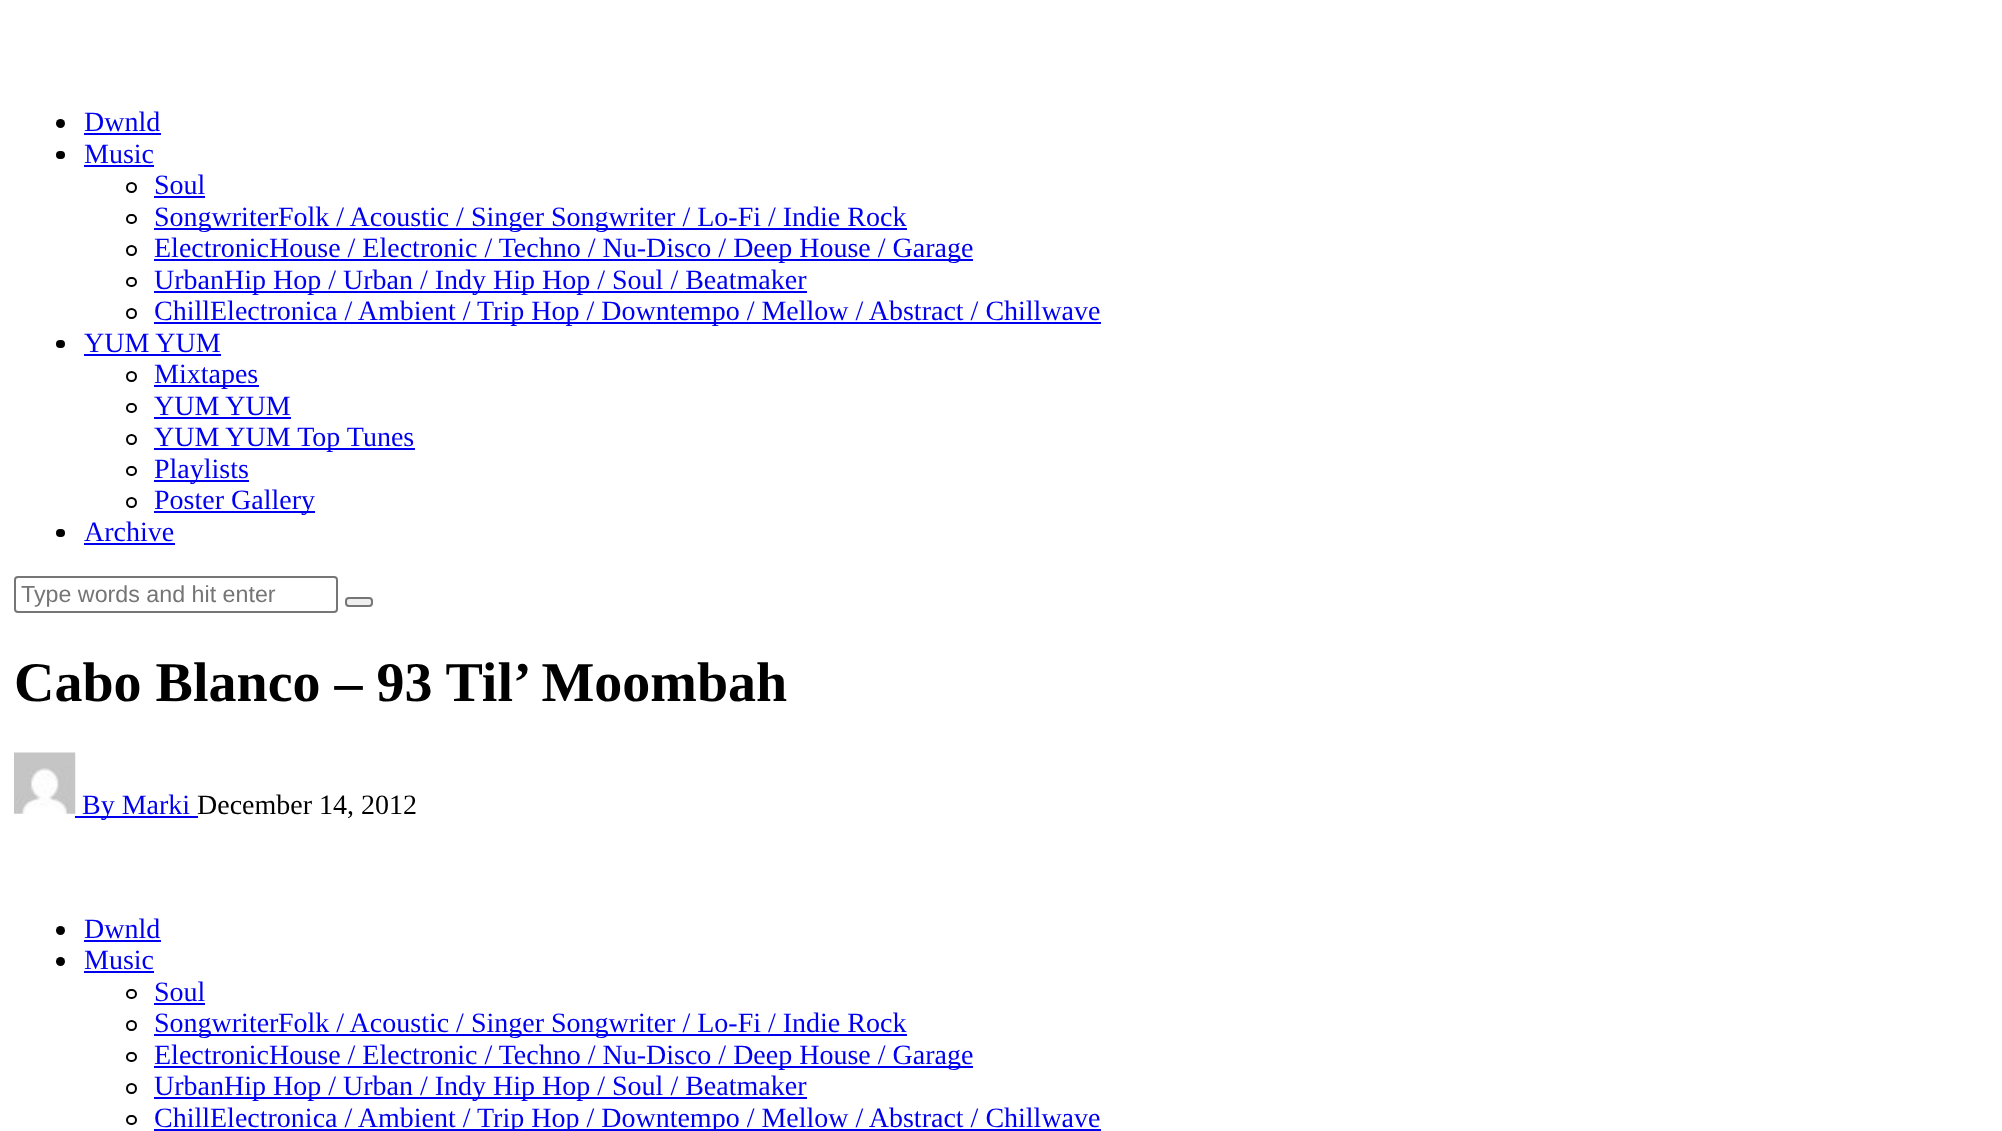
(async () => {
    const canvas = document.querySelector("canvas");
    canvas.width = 2002;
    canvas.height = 1131;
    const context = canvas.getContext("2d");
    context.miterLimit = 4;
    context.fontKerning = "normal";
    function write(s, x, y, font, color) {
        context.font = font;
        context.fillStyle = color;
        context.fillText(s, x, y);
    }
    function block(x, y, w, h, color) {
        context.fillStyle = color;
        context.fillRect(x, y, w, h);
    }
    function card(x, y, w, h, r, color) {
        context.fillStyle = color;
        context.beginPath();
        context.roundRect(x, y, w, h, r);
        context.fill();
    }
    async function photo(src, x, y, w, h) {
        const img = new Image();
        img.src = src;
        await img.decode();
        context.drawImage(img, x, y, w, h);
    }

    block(0, 0, 2002, 1131, "rgb(255, 255, 255)");
    context.fillStyle = "rgb(0, 0, 0)";
    context.beginPath();
    context.arc(60.5, 123.5, 4.5, 0, Math.PI * 2);
    context.fill();
    write("Dwnld", 84, 131, "28px Liberation Serif", "rgb(0, 0, 238)");
    block(84, 133, 77, 2, "rgb(0, 0, 238)");
    card(56, 151, 9, 8, 4, "rgb(0, 0, 0)");
    write("Music", 84, 163, "28px Liberation Serif", "rgb(0, 0, 238)");
    block(84, 165, 70, 2, "rgb(0, 0, 238)");
    context.beginPath();
    context.arc(131.5, 187.5, 4.5, 0, Math.PI * 2);
    context.strokeStyle = "rgb(0, 0, 0)";
    context.lineWidth = 2;
    context.stroke();
    write("Soul", 154, 194, "28px Liberation Serif", "rgb(0, 0, 238)");
    block(154, 196, 51, 2, "rgb(0, 0, 238)");
    context.beginPath();
    context.roundRect(127, 215, 9, 8, 4);
    context.stroke();
    block(154, 228, 124, 2, "rgb(0, 0, 238)");
    write("Songwriter", 154, 226, "28px Liberation Serif", "rgb(0, 0, 238)");
    block(278, 228, 629, 2, "rgb(0, 0, 238)");
    write("Folk / Acoustic / Singer Songwriter / Lo-Fi / Indie Rock", 278, 226, "28px Liberation Serif", "rgb(0, 0, 238)");
    context.beginPath();
    context.arc(131.5, 250.5, 4.5, 0, Math.PI * 2);
    context.stroke();
    block(154, 259, 819, 2, "rgb(0, 0, 238)");
    write("ElectronicHouse / Electronic / Techno / Nu-Disco / Deep House / Garage", 154, 257, "28px Liberation Serif", "rgb(0, 0, 238)");
    context.beginPath();
    context.roundRect(127, 278, 9, 8, 4);
    context.stroke();
    block(154, 291, 653, 2, "rgb(0, 0, 238)");
    write("UrbanHip Hop / Urban / Indy Hip Hop / Soul / Beatmaker", 154, 289, "28px Liberation Serif", "rgb(0, 0, 238)");
    context.beginPath();
    context.arc(131.5, 313.5, 4.5, 0, Math.PI * 2);
    context.stroke();
    block(154, 322, 947, 2, "rgb(0, 0, 238)");
    write("ChillElectronica / Ambient / Trip Hop / Downtempo / Mellow / Abstract / Chillwave", 154, 320, "28px Liberation Serif", "rgb(0, 0, 238)");
    card(56, 340, 9, 8, 4, "rgb(0, 0, 0)");
    write("YUM YUM", 84, 352, "28px Liberation Serif", "rgb(0, 0, 238)");
    block(84, 354, 137, 2, "rgb(0, 0, 238)");
    context.beginPath();
    context.arc(131.5, 376.5, 4.5, 0, Math.PI * 2);
    context.stroke();
    block(154, 385, 105, 2, "rgb(0, 0, 238)");
    write("Mixtapes", 154, 383, "28px Liberation Serif", "rgb(0, 0, 238)");
    context.beginPath();
    context.roundRect(127, 404, 9, 8, 4);
    context.stroke();
    write("YUM YUM", 154, 415, "28px Liberation Serif", "rgb(0, 0, 238)");
    block(154, 417, 137, 2, "rgb(0, 0, 238)");
    context.beginPath();
    context.arc(131.5, 439.5, 4.5, 0, Math.PI * 2);
    context.stroke();
    block(154, 448, 261, 2, "rgb(0, 0, 238)");
    write("YUM YUM Top Tunes", 154, 446, "28px Liberation Serif", "rgb(0, 0, 238)");
    context.beginPath();
    context.roundRect(127, 467, 9, 8, 4);
    context.stroke();
    block(154, 480, 95, 2, "rgb(0, 0, 238)");
    write("Playlists", 154, 478, "28px Liberation Serif", "rgb(0, 0, 238)");
    context.beginPath();
    context.arc(131.5, 502.5, 4.5, 0, Math.PI * 2);
    context.stroke();
    block(154, 511, 161, 2, "rgb(0, 0, 238)");
    write("Poster Gallery", 154, 509, "28px Liberation Serif", "rgb(0, 0, 238)");
    card(56, 529, 9, 8, 4, "rgb(0, 0, 0)");
    write("Archive", 84, 541, "28px Liberation Serif", "rgb(0, 0, 238)");
    block(84, 543, 91, 2, "rgb(0, 0, 238)");
    context.beginPath();
    context.roundRect(15, 577, 322, 35, 3);
    context.strokeStyle = "rgb(118, 118, 118)";
    context.stroke();
    write("Type words and hit enter", 21, 602, "23.25px Liberation Sans", "rgb(117, 117, 117)");
    context.fillStyle = "rgb(239, 239, 239)";
    context.beginPath();
    context.roundRect(346, 598, 26, 8, 3);
    context.fill();
    context.stroke();
    write("Cabo Blanco – 93 Til’ Moombah", 14, 701, "bold 56px Liberation Serif", "rgb(0, 0, 0)");
    await photo("media/1.png", 14, 752, 62, 62);
    block(75, 816, 123, 2, "rgb(0, 0, 238)");
    write("By Marki", 82, 814, "28px Liberation Serif", "rgb(0, 0, 238)");
    write("December 14, 2012", 197, 814, "28px Liberation Serif", "rgb(0, 0, 0)");
    context.beginPath();
    context.arc(60.5, 930.5, 4.5, 0, Math.PI * 2);
    context.fill();
    write("Dwnld", 84, 938, "28px Liberation Serif", "rgb(0, 0, 238)");
    block(84, 940, 77, 2, "rgb(0, 0, 238)");
    context.fillStyle = "rgb(0, 0, 0)";
    context.beginPath();
    context.arc(60.5, 961.5, 4.5, 0, Math.PI * 2);
    context.fill();
    write("Music", 84, 969, "28px Liberation Serif", "rgb(0, 0, 238)");
    block(84, 971, 70, 2, "rgb(0, 0, 238)");
    context.beginPath();
    context.roundRect(127, 990, 9, 8, 4);
    context.strokeStyle = "rgb(0, 0, 0)";
    context.stroke();
    write("Soul", 154, 1001, "28px Liberation Serif", "rgb(0, 0, 238)");
    block(154, 1003, 51, 2, "rgb(0, 0, 238)");
    context.beginPath();
    context.arc(131.5, 1025.5, 4.5, 0, Math.PI * 2);
    context.stroke();
    block(154, 1034, 124, 2, "rgb(0, 0, 238)");
    write("Songwriter", 154, 1032, "28px Liberation Serif", "rgb(0, 0, 238)");
    block(278, 1034, 629, 2, "rgb(0, 0, 238)");
    write("Folk / Acoustic / Singer Songwriter / Lo-Fi / Indie Rock", 278, 1032, "28px Liberation Serif", "rgb(0, 0, 238)");
    context.beginPath();
    context.roundRect(127, 1053, 9, 8, 4);
    context.stroke();
    block(154, 1066, 819, 2, "rgb(0, 0, 238)");
    write("ElectronicHouse / Electronic / Techno / Nu-Disco / Deep House / Garage", 154, 1064, "28px Liberation Serif", "rgb(0, 0, 238)");
    context.beginPath();
    context.arc(131.5, 1088.5, 4.5, 0, Math.PI * 2);
    context.stroke();
    block(154, 1097, 653, 2, "rgb(0, 0, 238)");
    write("UrbanHip Hop / Urban / Indy Hip Hop / Soul / Beatmaker", 154, 1095, "28px Liberation Serif", "rgb(0, 0, 238)");
    context.beginPath();
    context.roundRect(127, 1116, 9, 8, 4);
    context.stroke();
    block(154, 1129, 947, 2, "rgb(0, 0, 238)");
    write("ChillElectronica / Ambient / Trip Hop / Downtempo / Mellow / Abstract / Chillwave", 154, 1127, "28px Liberation Serif", "rgb(0, 0, 238)");
})();
